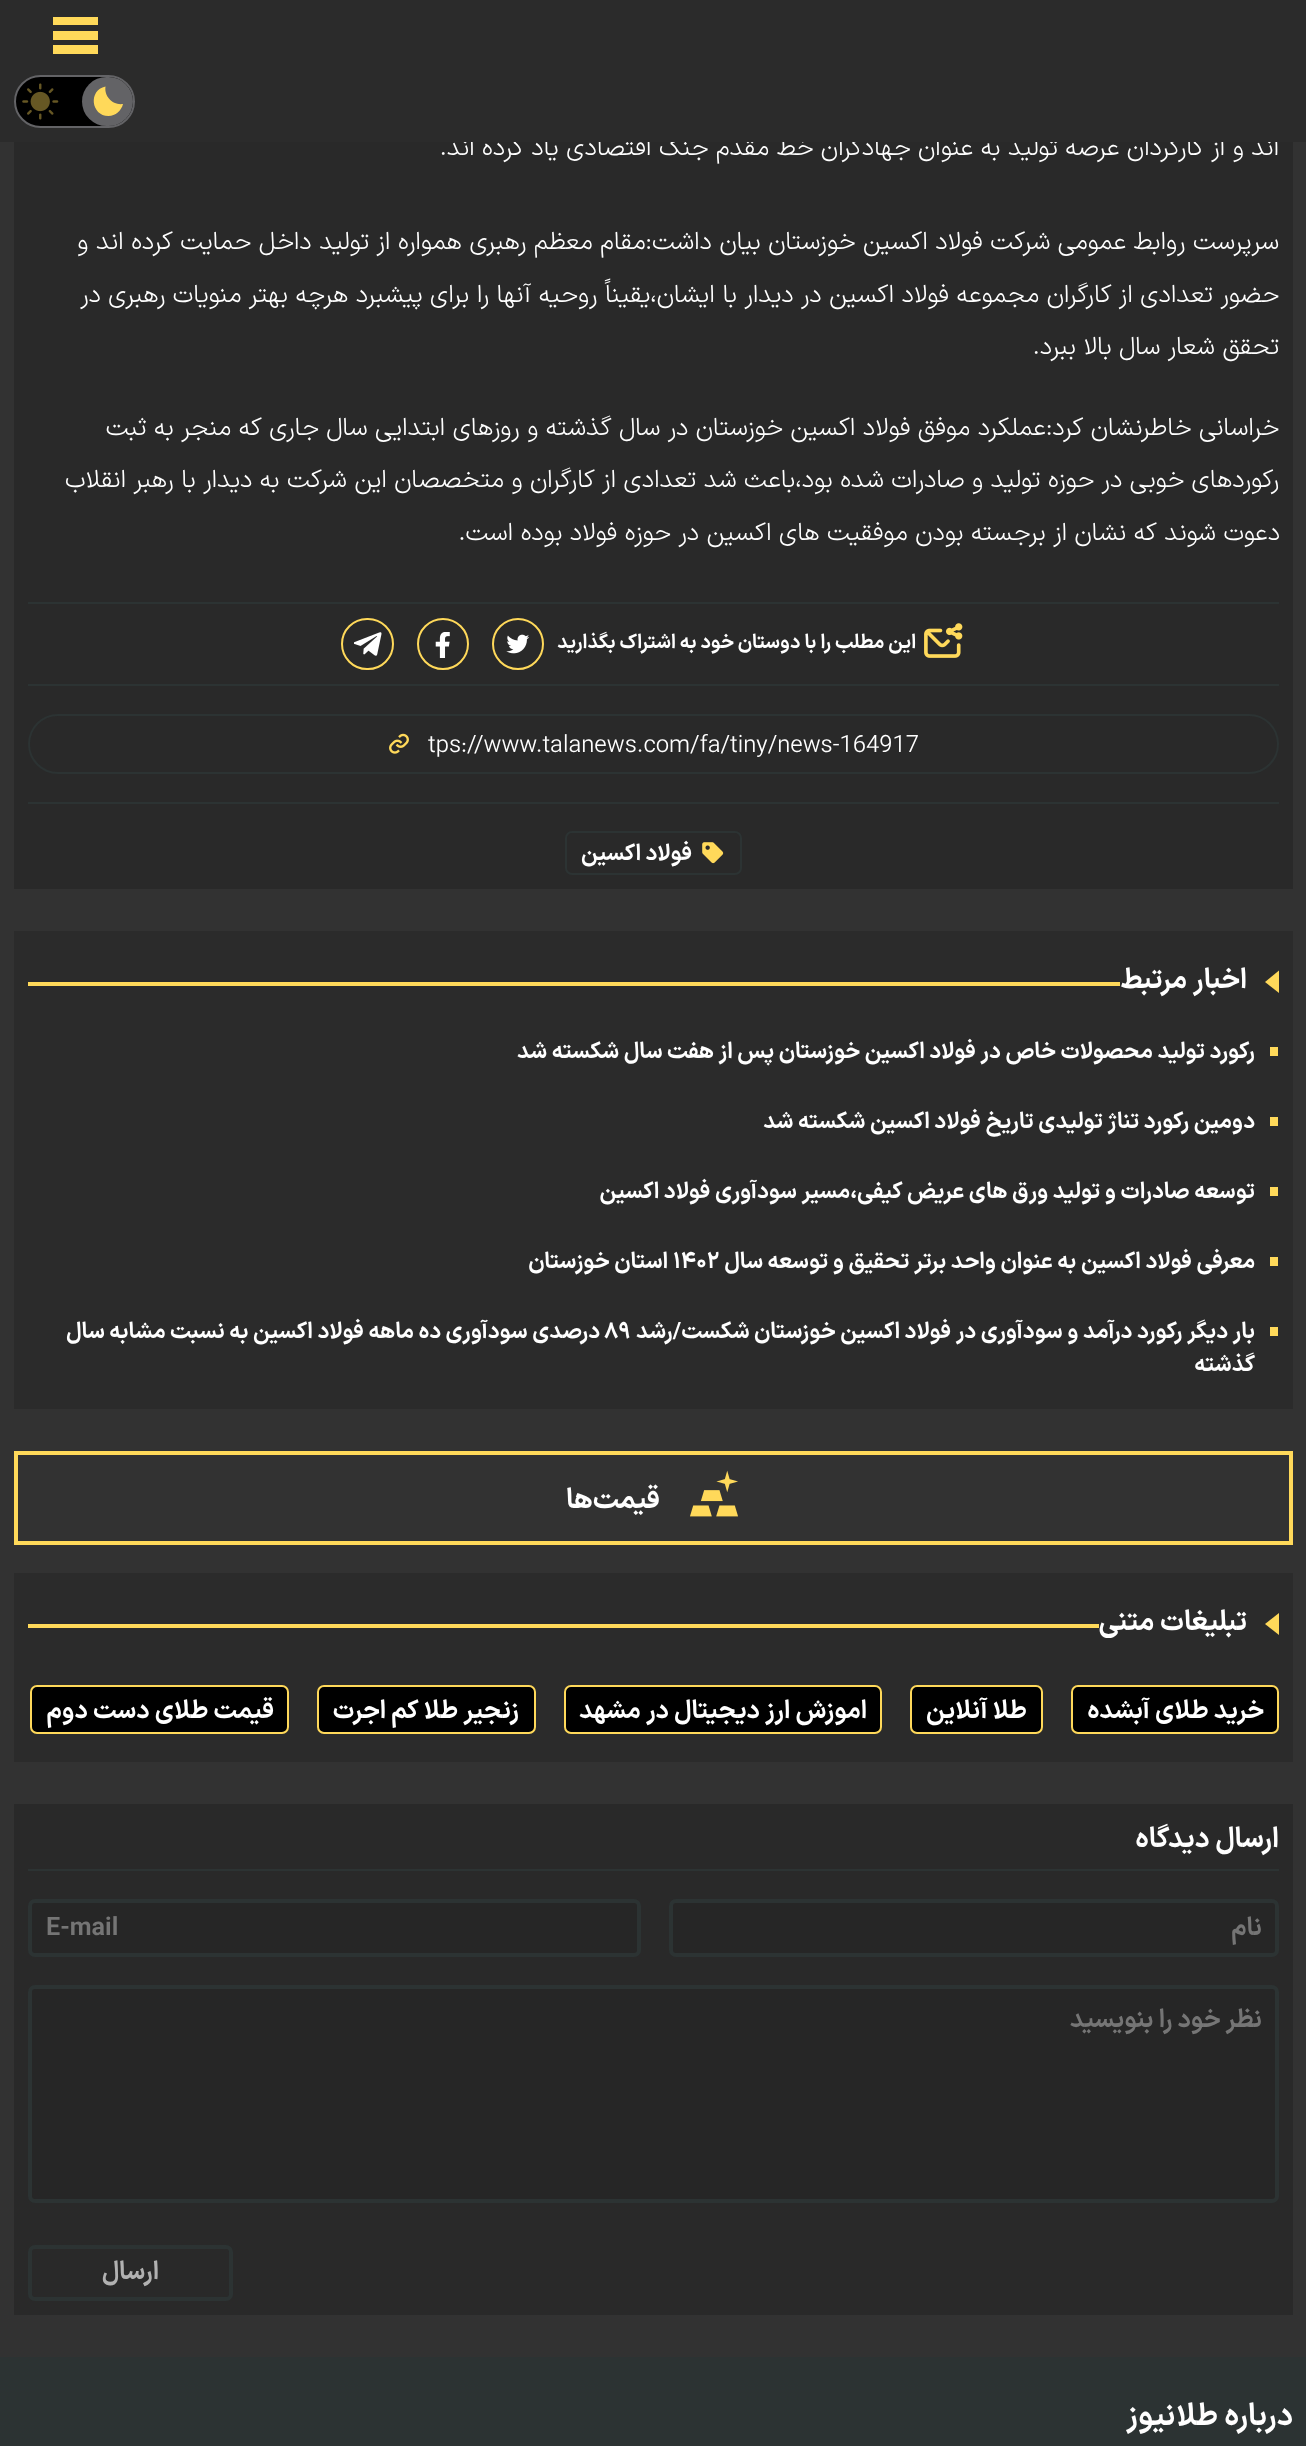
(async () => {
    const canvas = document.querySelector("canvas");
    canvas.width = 1306;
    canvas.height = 2446;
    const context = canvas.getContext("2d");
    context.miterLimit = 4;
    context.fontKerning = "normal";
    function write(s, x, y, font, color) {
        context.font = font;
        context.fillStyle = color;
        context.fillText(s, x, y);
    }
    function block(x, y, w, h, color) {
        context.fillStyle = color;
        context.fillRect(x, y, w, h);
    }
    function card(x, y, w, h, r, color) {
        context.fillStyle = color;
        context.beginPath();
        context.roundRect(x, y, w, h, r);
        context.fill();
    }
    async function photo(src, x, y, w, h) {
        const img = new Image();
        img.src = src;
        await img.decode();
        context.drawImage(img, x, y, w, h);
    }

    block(0, 0, 1306, 2446, "rgb(50, 50, 50)");
    block(14, 142, 1279, 747, "rgb(41, 41, 41)");
    context.direction = "rtl";
    write("اند و از کارگردان عرصه تولید به عنوان جهادگران خط مقدم جنگ اقتصادی یاد کرده اند.", 1279, 155, "300 25.2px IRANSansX", "rgb(255, 255, 255)");
    block(0, 0, 1306, 142, "rgb(43, 43, 43)");
    context.save();
    context.beginPath();
    context.rect(53, 14, 45, 46);
    context.clip();
    context.fillStyle = "rgb(255, 217, 90)";
    context.beginPath();
    context.moveTo(52, 17);
    context.lineTo(98, 17);
    context.lineTo(98, 25);
    context.lineTo(52, 25);
    context.closePath();
    context.moveTo(52, 31);
    context.lineTo(98, 31);
    context.lineTo(98, 40);
    context.lineTo(52, 40);
    context.closePath();
    context.moveTo(52, 45);
    context.lineTo(98, 45);
    context.lineTo(98, 54);
    context.lineTo(52, 54);
    context.closePath();
    context.fill();
    context.restore();
    context.fillStyle = "rgb(0, 0, 0)";
    context.beginPath();
    context.roundRect(15, 76, 119, 51, 25.5);
    context.fill();
    context.strokeStyle = "rgb(99, 99, 102)";
    context.lineWidth = 2;
    context.stroke();
    card(82, 77, 51, 49, 24.5, "rgb(99, 99, 102)");
    context.fillStyle = "rgb(255, 217, 90)";
    context.beginPath();
    context.moveTo(108.5, 116);
    context.bezierCurveTo(91, 116, 88, 90, 105.5, 86.5);
    context.bezierCurveTo(104, 96.5, 113, 105.5, 123, 104);
    context.bezierCurveTo(121.5, 110.5, 115.5, 116, 108.5, 116);
    context.closePath();
    context.fill();
    await photo("media/1.png", 22, 83, 37, 37);
    write("سرپرست روابط عمومی شرکت فولاد اکسین خوزستان بیان داشت:مقام معظم رهبری همواره از تولید داخل حمایت کرده اند و", 1279, 249, "300 25.2px IRANSansX", "rgb(255, 255, 255)");
    write("حضور تعدادی از کارگران مجموعه فولاد اکسین در دیدار با ایشان،یقیناً روحیه آنها را برای پیشبرد هرچه بهتر منویات رهبری در", 1279, 302, "300 25.2px IRANSansX", "rgb(255, 255, 255)");
    write("تحقق شعار سال بالا ببرد.", 1279, 354, "300 25.2px IRANSansX", "rgb(255, 255, 255)");
    write("خراسانی خاطرنشان کرد:عملکرد موفق فولاد اکسین خوزستان در سال گذشته و روزهای ابتدایی سال جاری که منجر به ثبت", 1279, 435, "300 25.2px IRANSansX", "rgb(255, 255, 255)");
    write("رکوردهای خوبی در حوزه تولید و صادرات شده بود،باعث شد تعدادی از کارگران و متخصصان این شرکت به دیدار با رهبر انقلاب", 1279, 487, "300 25.2px IRANSansX", "rgb(255, 255, 255)");
    write("دعوت شوند که نشان از برجسته بودن موفقیت های اکسین در حوزه فولاد بوده است.", 1280, 540, "300 25.2px IRANSansX", "rgb(255, 255, 255)");
    block(28, 602, 1251, 2, "rgb(44, 51, 51)");
    block(28, 684, 1251, 2, "rgb(44, 51, 51)");
    await photo("media/2.png", 924, 623, 39, 35);
    write("این مطلب را با دوستان خود به اشتراک بگذارید", 916, 648, "bold 19.6px IRANSansX", "rgb(255, 255, 255)");
    context.beginPath();
    context.arc(518, 644, 25, 0, Math.PI * 2);
    context.strokeStyle = "rgb(255, 217, 90)";
    context.stroke();
    await photo("media/3.png", 506, 634, 23, 20);
    context.beginPath();
    context.arc(443, 644, 25, 0, Math.PI * 2);
    context.stroke();
    await photo("media/4.png", 435, 632, 15, 26);
    context.beginPath();
    context.roundRect(342, 619, 51, 50, 25);
    context.stroke();
    await photo("media/5.png", 354, 632, 28, 24);
    block(28, 802, 1251, 2, "rgb(44, 51, 51)");
    context.beginPath();
    context.roundRect(29, 715, 1249, 58, 29);
    context.strokeStyle = "rgb(44, 51, 51)";
    context.stroke();
    context.direction = "ltr";
    write("tps://www.talanews.com/fa/tiny/news-164917", 428, 752, "300 23.8px IRANSansX", "rgb(255, 255, 255)");
    await photo("media/6.png", 389, 733, 20, 21);
    context.beginPath();
    context.roundRect(566, 832, 175, 42, 6);
    context.stroke();
    await photo("media/7.png", 702, 842, 22, 22);
    context.direction = "rtl";
    write("فولاد اکسین", 692, 860, "bold 22.4px IRANSansX", "rgb(255, 255, 255)");
    block(14, 931, 1279, 478, "rgb(43, 43, 43)");
    write("اخبار مرتبط", 1247, 988, "bold 28px IRANSansX", "rgb(255, 255, 255)");
    context.fillStyle = "rgb(255, 217, 90)";
    context.beginPath();
    context.moveTo(1265, 982);
    context.lineTo(1279, 970.5);
    context.lineTo(1279, 993);
    context.closePath();
    context.fill();
    block(28, 982, 1092, 4, "rgb(255, 217, 90)");
    block(1270, 1047, 8, 9, "rgb(255, 217, 90)");
    write("رکورد تولید محصولات خاص در فولاد اکسین خوزستان پس از هفت سال شکسته شد", 1255, 1058, "bold 22.4px IRANSansX", "rgb(255, 255, 255)");
    block(1270, 1117, 8, 9, "rgb(255, 217, 90)");
    write("دومین رکورد تناژ تولیدی تاریخ فولاد اکسین شکسته شد", 1255, 1128, "bold 22.4px IRANSansX", "rgb(255, 255, 255)");
    block(1270, 1187, 8, 9, "rgb(255, 217, 90)");
    write("توسعه صادرات و تولید ورق های عریض کیفی،مسیر سودآوری فولاد اکسین", 1255, 1198, "bold 22.4px IRANSansX", "rgb(255, 255, 255)");
    block(1270, 1257, 8, 9, "rgb(255, 217, 90)");
    write("معرفی فولاد اکسین به عنوان واحد برتر تحقیق و توسعه سال", 1255, 1268, "bold 22.4px IRANSansX", "rgb(255, 255, 255)");
    context.direction = "ltr";
    write("۱۴۰۲", 673, 1268, "bold 22.4px IRANSansX", "rgb(255, 255, 255)");
    context.direction = "rtl";
    write("استان خوزستان", 668, 1268, "bold 22.4px IRANSansX", "rgb(255, 255, 255)");
    block(1270, 1327, 8, 9, "rgb(255, 217, 90)");
    write("بار دیگر رکورد درآمد و سودآوری در فولاد اکسین خوزستان شکست/رشد", 1255, 1338, "bold 22.4px IRANSansX", "rgb(255, 255, 255)");
    context.direction = "ltr";
    write("۸۹", 604, 1338, "bold 22.4px IRANSansX", "rgb(255, 255, 255)");
    context.direction = "rtl";
    write("درصدی سودآوری ده ماهه فولاد اکسین به نسبت مشابه سال", 600, 1338, "bold 22.4px IRANSansX", "rgb(255, 255, 255)");
    write("گذشته", 1255, 1371, "bold 22.4px IRANSansX", "rgb(255, 255, 255)");
    context.strokeStyle = "rgb(255, 217, 90)";
    context.lineWidth = 4;
    context.strokeRect(16, 1453, 1275, 90);
    await photo("media/8.png", 690, 1470, 48, 47);
    write("قیمت‌ها", 660, 1508, "bold 28px IRANSansX", "rgb(255, 255, 255)");
    block(14, 1573, 1279, 189, "rgb(43, 43, 43)");
    write("تبلیغات متنی", 1247, 1630, "bold 28px IRANSansX", "rgb(255, 255, 255)");
    context.fillStyle = "rgb(255, 217, 90)";
    context.beginPath();
    context.moveTo(1265, 1624);
    context.lineTo(1279, 1613);
    context.lineTo(1279, 1635);
    context.closePath();
    context.fill();
    block(28, 1624, 1071, 4, "rgb(255, 217, 90)");
    context.fillStyle = "rgb(0, 0, 0)";
    context.beginPath();
    context.roundRect(1072, 1686, 206, 47, 6);
    context.fill();
    context.lineWidth = 2;
    context.stroke();
    write("خرید طلای آبشده", 1264, 1718, "bold 25.2px IRANSansX", "rgb(255, 255, 255)");
    context.fillStyle = "rgb(0, 0, 0)";
    context.beginPath();
    context.roundRect(911, 1686, 131, 47, 6);
    context.fill();
    context.stroke();
    write("طلا آنلاین", 1027, 1718, "bold 25.2px IRANSansX", "rgb(255, 255, 255)");
    context.fillStyle = "rgb(0, 0, 0)";
    context.beginPath();
    context.roundRect(565, 1686, 316, 47, 6);
    context.fill();
    context.stroke();
    write("اموزش ارز دیجیتال در مشهد", 867, 1718, "bold 25.2px IRANSansX", "rgb(255, 255, 255)");
    context.fillStyle = "rgb(0, 0, 0)";
    context.beginPath();
    context.roundRect(318, 1686, 217, 47, 6);
    context.fill();
    context.stroke();
    write("زنجیر طلا کم اجرت", 519, 1718, "bold 25.2px IRANSansX", "rgb(255, 255, 255)");
    context.fillStyle = "rgb(0, 0, 0)";
    context.beginPath();
    context.roundRect(31, 1686, 257, 47, 6);
    context.fill();
    context.stroke();
    write("قیمت طلای دست دوم", 274, 1718, "bold 25.2px IRANSansX", "rgb(255, 255, 255)");
    block(14, 1804, 1279, 511, "rgb(41, 41, 41)");
    block(28, 1869, 1251, 2, "rgb(44, 51, 51)");
    write("ارسال دیدگاه", 1279, 1847, "bold 28px IRANSansX", "rgb(255, 255, 255)");
    context.fillStyle = "rgb(38, 38, 38)";
    context.beginPath();
    context.roundRect(671, 1901, 606, 54, 5);
    context.fill();
    context.strokeStyle = "rgb(44, 51, 51)";
    context.lineWidth = 4;
    context.stroke();
    write("نام", 1262, 1935, "bold 25.2px IRANSansX", "rgb(117, 117, 117)");
    context.fillStyle = "rgb(38, 38, 38)";
    context.beginPath();
    context.roundRect(30, 1901, 609, 54, 5);
    context.fill();
    context.stroke();
    context.direction = "ltr";
    write("E-mail", 46, 1935, "bold 25.2px IRANSansX", "rgb(117, 117, 117)");
    context.fillStyle = "rgb(38, 38, 38)";
    context.beginPath();
    context.roundRect(30, 1987, 1247, 214, 5);
    context.fill();
    context.stroke();
    context.direction = "rtl";
    write("نظر خود را بنویسید", 1262, 2027, "bold 25.2px IRANSansX", "rgb(117, 117, 117)");
    context.beginPath();
    context.roundRect(30, 2247, 201, 52, 5);
    context.stroke();
    write("ارسال", 159, 2279, "bold 25.2px IRANSansX", "rgb(177, 177, 177)");
    block(0, 2357, 1306, 89, "rgb(44, 51, 51)");
    write("درباره طلانیوز", 1293, 2425, "bold 30.75px IRANSansX", "rgb(255, 255, 255)");
})();
